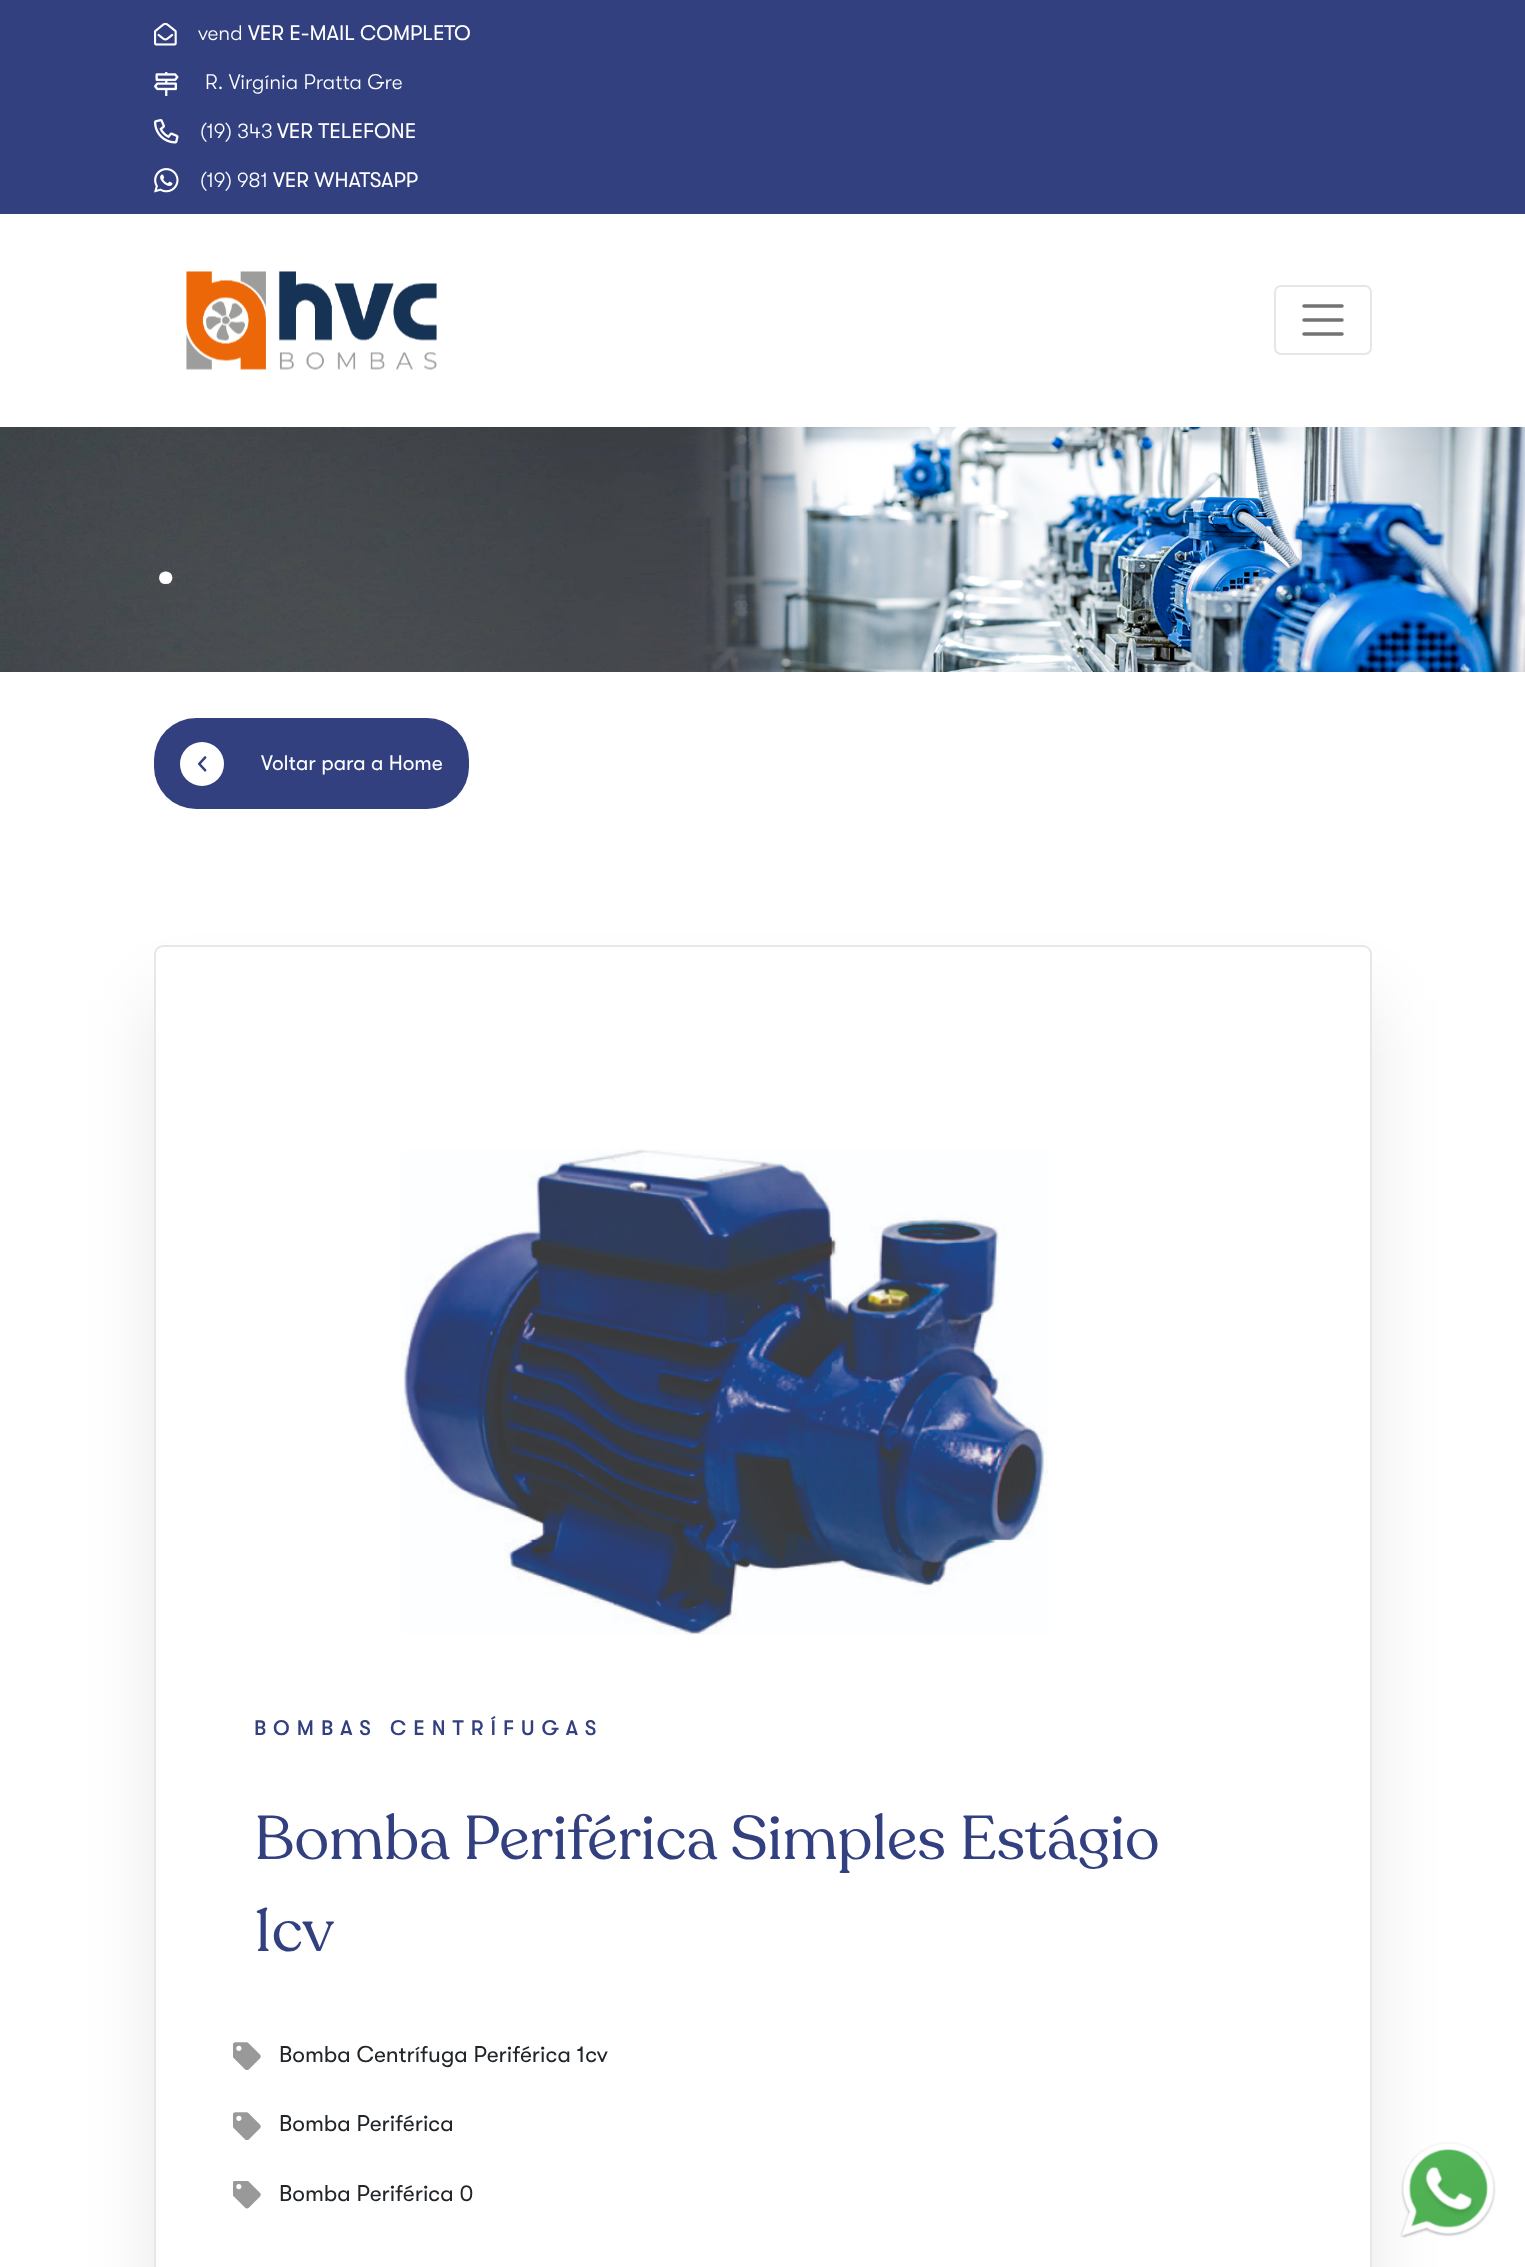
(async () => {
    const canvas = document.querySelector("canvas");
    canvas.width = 1525;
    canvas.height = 2267;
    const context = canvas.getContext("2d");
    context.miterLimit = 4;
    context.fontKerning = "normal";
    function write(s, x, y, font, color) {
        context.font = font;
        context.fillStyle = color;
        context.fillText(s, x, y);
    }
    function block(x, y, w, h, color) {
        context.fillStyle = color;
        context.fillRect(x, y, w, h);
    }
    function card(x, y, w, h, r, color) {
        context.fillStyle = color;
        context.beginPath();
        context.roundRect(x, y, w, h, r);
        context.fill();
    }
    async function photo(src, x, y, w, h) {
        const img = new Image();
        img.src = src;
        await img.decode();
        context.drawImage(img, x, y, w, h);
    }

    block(0, 0, 1525, 2267, "rgb(255, 255, 255)");
    block(0, 0, 1525, 214, "rgb(51, 64, 128)");
    await photo("media/1.png", 154, 23, 23, 23);
    write("vend", 198, 40, "300 21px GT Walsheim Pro", "rgb(255, 255, 255)");
    write("VER E-MAIL COMPLETO", 248, 40, "21px GT Walsheim Pro", "rgb(255, 255, 255)");
    await photo("media/2.png", 154, 72, 25, 24);
    write("R. Virgínia Pratta Gre", 205, 89, "300 21px GT Walsheim Pro", "rgb(255, 255, 255)");
    await photo("media/3.png", 154, 119, 25, 25);
    write("(19) 343", 200, 138, "300 21px GT Walsheim Pro", "rgb(255, 255, 255)");
    write("VER TELEFONE", 277, 138, "21px GT Walsheim Pro", "rgb(255, 255, 255)");
    await photo("media/4.png", 154, 168, 25, 25);
    write("(19) 981", 200, 187, "300 21px GT Walsheim Pro", "rgb(255, 255, 255)");
    write("VER WHATSAPP", 273, 187, "21px GT Walsheim Pro", "rgb(255, 255, 255)");
    await photo("media/5.png", 186, 271, 251, 99);
    context.beginPath();
    context.roundRect(1275, 286, 96, 68, 6);
    context.strokeStyle = "rgb(230, 230, 230)";
    context.lineWidth = 2;
    context.stroke();
    context.beginPath();
    context.moveTo(1304, 306);
    context.lineTo(1342, 306);
    context.moveTo(1304, 320);
    context.lineTo(1342, 320);
    context.moveTo(1304, 334);
    context.lineTo(1342, 334);
    context.strokeStyle = "rgb(115, 115, 115)";
    context.lineWidth = 3.5;
    context.lineCap = "round";
    context.stroke();
    await photo("media/6.png", 0, 427, 1525, 245);
    write(".", 154, 583, "105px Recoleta", "rgb(255, 255, 255)");
    card(154, 718, 315, 91, 42, "rgb(51, 64, 128)");
    context.fillStyle = "rgb(255, 255, 255)";
    context.beginPath();
    context.arc(202, 764, 22, 0, Math.PI * 2);
    context.fill();
    await photo("media/7.png", 198, 756, 9, 16);
    write("Voltar para a Home", 261, 770, "21px GT Walsheim Pro", "rgb(255, 255, 255)");
    context.save();
    context.beginPath();
    context.moveTo(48, 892);
    context.lineTo(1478, 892);
    context.lineTo(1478, 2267);
    context.lineTo(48, 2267);
    context.closePath();
    context.moveTo(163, 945);
    context.lineTo(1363, 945);
    context.bezierCurveTo(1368, 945, 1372, 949, 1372, 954);
    context.lineTo(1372, 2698);
    context.bezierCurveTo(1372, 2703, 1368, 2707, 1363, 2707);
    context.lineTo(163, 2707);
    context.bezierCurveTo(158, 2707, 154, 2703, 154, 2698);
    context.lineTo(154, 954);
    context.bezierCurveTo(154, 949, 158, 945, 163, 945);
    context.closePath();
    context.clip("evenodd");
    context.fillStyle = "rgba(0, 0, 0, 0.09)";
    context.filter = "blur(35px)";
    context.beginPath();
    context.roundRect(154, 998, 1218, 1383, 9);
    context.fill();
    context.filter = "none";
    context.restore();
    context.beginPath();
    context.roundRect(155, 946, 1216, 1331, 8);
    context.strokeStyle = "rgb(231, 231, 231)";
    context.lineWidth = 2;
    context.stroke();
    await photo("media/8.png", 401, 1149, 647, 486);
    context.letterSpacing = "7px";
    write("BOMBAS CENTRÍFUGAS", 254, 1735, "500 21px GT Walsheim Pro", "rgb(51, 64, 128)");
    context.letterSpacing = "0px";
    write("Bomba Periférica Simples Estágio", 254, 1859, "61.25px Recoleta", "rgb(51, 64, 128)");
    write("1cv", 254, 1951, "61.25px Recoleta", "rgb(51, 64, 128)");
    await photo("media/9.png", 233, 2042, 28, 28);
    write("Bomba Centrífuga Periférica 1cv", 279, 2062, "22.75px GT Walsheim Pro", "rgb(33, 37, 41)");
    await photo("media/9.png", 233, 2112, 28, 28);
    write("Bomba Periférica", 279, 2131, "22.75px GT Walsheim Pro", "rgb(33, 37, 41)");
    await photo("media/10.png", 233, 2181, 28, 28);
    write("Bomba Periférica 0", 279, 2201, "22.75px GT Walsheim Pro", "rgb(33, 37, 41)");
    await photo("media/11.png", 1400, 2142, 96, 96);
})();
